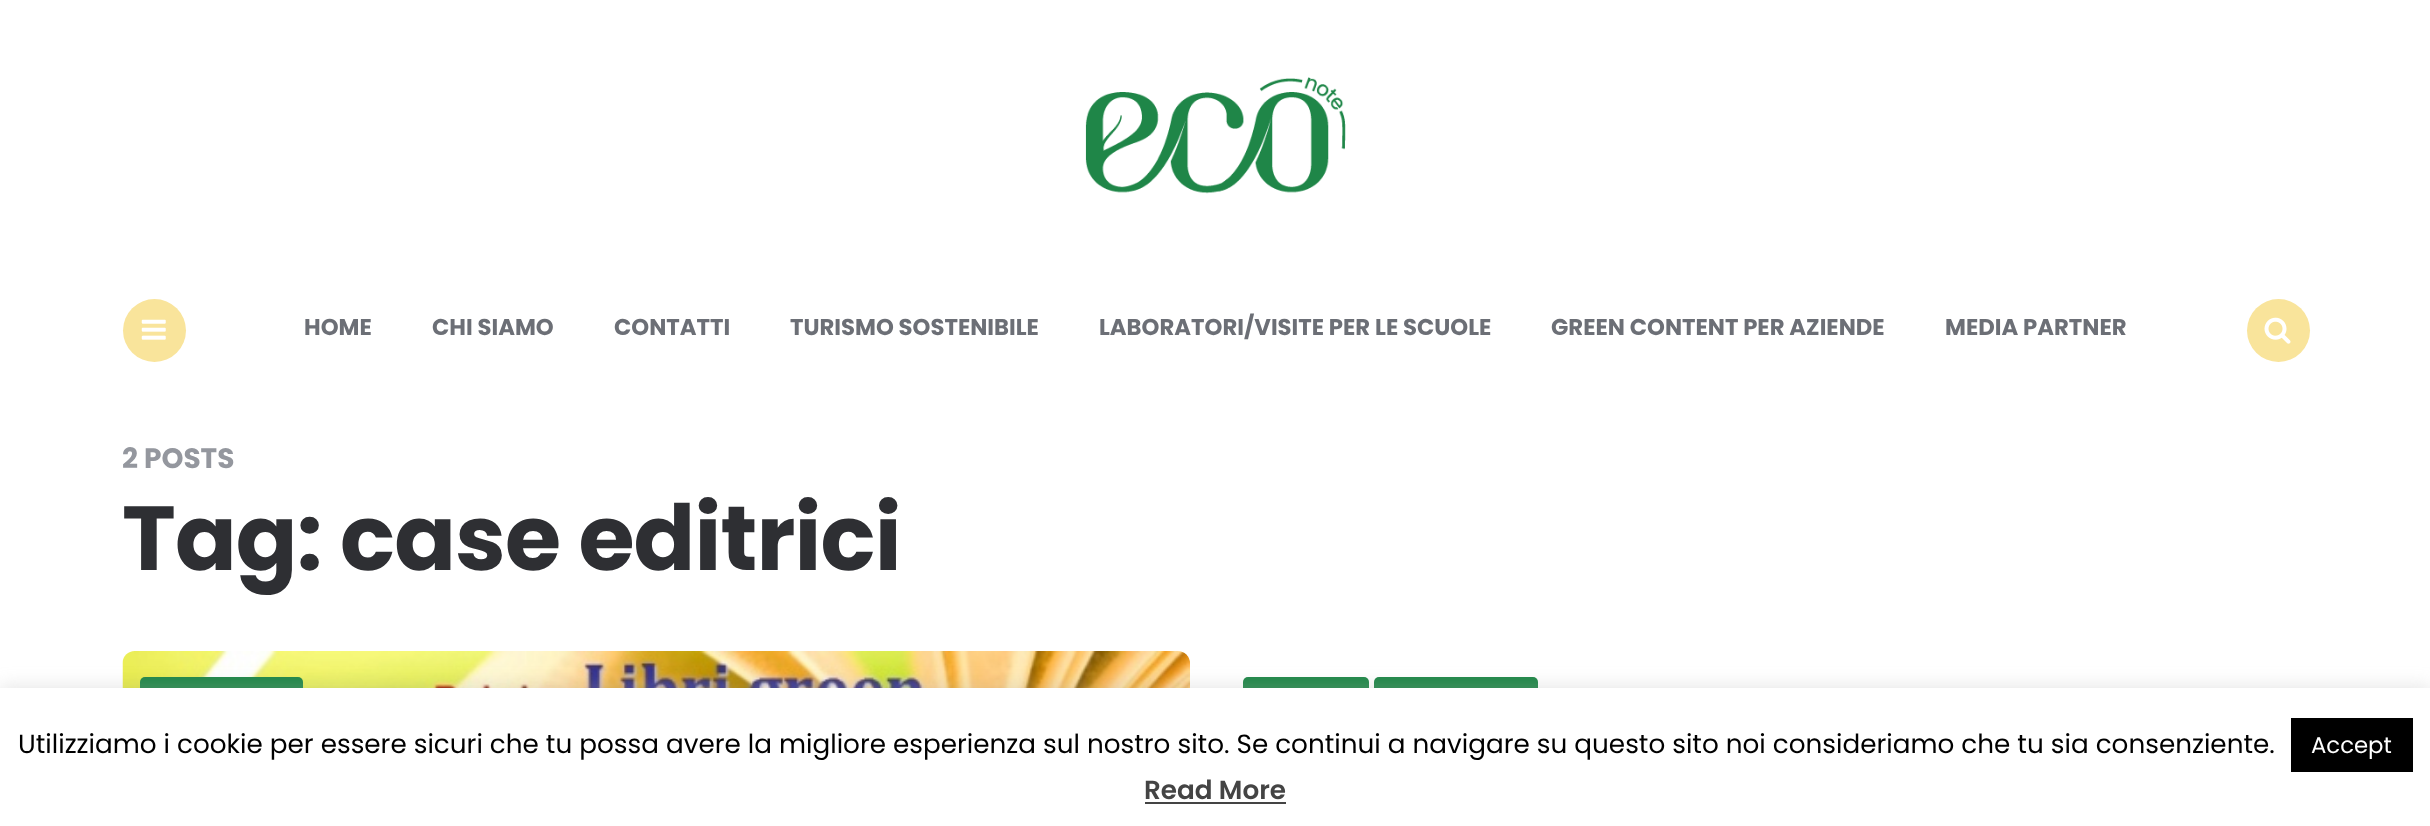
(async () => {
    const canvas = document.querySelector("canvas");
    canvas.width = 2430;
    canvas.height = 826;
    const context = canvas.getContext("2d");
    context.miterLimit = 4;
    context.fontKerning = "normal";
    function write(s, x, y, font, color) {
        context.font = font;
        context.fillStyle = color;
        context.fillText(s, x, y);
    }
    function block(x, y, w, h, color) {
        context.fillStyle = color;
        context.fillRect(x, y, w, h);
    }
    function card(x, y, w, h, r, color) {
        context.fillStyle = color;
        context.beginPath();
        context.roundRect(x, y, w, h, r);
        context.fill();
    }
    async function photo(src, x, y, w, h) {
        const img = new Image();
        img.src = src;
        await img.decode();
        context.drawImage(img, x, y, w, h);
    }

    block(0, 0, 2430, 826, "rgb(255, 255, 255)");
    await photo("media/1.png", 1085, 77, 261, 117);
    context.fillStyle = "rgb(249, 228, 155)";
    context.beginPath();
    context.arc(154.5, 330.5, 31.5, 0, Math.PI * 2);
    context.fill();
    await photo("media/2.png", 141, 319, 25, 21);
    write("HOME", 304, 335, "bold 22.75px Poppins", "rgb(108, 111, 118)");
    write("CHI SIAMO", 432, 335, "bold 22.75px Poppins", "rgb(108, 111, 118)");
    write("CONTATTI", 614, 335, "bold 22.75px Poppins", "rgb(108, 111, 118)");
    write("TURISMO SOSTENIBILE", 790, 335, "bold 22.75px Poppins", "rgb(108, 111, 118)");
    write("LABORATORI/VISITE PER LE SCUOLE", 1099, 335, "bold 22.75px Poppins", "rgb(108, 111, 118)");
    write("GREEN CONTENT PER AZIENDE", 1551, 335, "bold 22.75px Poppins", "rgb(108, 111, 118)");
    write("MEDIA PARTNER", 1945, 335, "bold 22.75px Poppins", "rgb(108, 111, 118)");
    context.fillStyle = "rgb(249, 228, 155)";
    context.beginPath();
    context.arc(2278.5, 330.5, 31.5, 0, Math.PI * 2);
    context.fill();
    await photo("media/3.png", 2264, 317, 27, 27);
    write("2 POSTS", 122, 468, "bold 28px Poppins", "rgb(148, 151, 158)");
    context.letterSpacing = "-0.9px";
    write("Tag: case editrici", 122, 570, "bold 91px Poppins", "rgb(46, 47, 51)");
    await photo("media/4.png", 122, 651, 1068, 37);
    card(140, 677, 163, 39, 5, "rgb(31, 135, 72)");
    card(1243, 677, 126, 39, 5, "rgb(31, 135, 72)");
    card(1374, 677, 164, 39, 5, "rgb(31, 135, 72)");
    context.fillStyle = "rgba(172, 171, 171, 0.3)";
    context.filter = "blur(9px)";
    context.beginPath();
    context.rect(0, 686, 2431, 138);
    context.fill();
    context.filter = "none";
    block(0, 688, 2430, 138, "rgb(255, 255, 255)");
    context.letterSpacing = "0px";
    write("Utilizziamo i cookie per essere sicuri che tu possa avere la migliore esperienza sul nostro sito. Se continui a navigare su questo sito noi consideriamo che tu sia consenziente.", 18, 753, "26.25px Poppins", "rgb(0, 0, 0)");
    block(2291, 718, 122, 54, "rgb(0, 0, 0)");
    write("Accept", 2311, 753, "22.75px Poppins", "rgb(255, 255, 255)");
    write("Read More", 1144, 799, "600 26.25px Poppins", "rgb(68, 68, 68)");
    block(1145, 802, 141, 2, "rgb(68, 68, 68)");
})();
